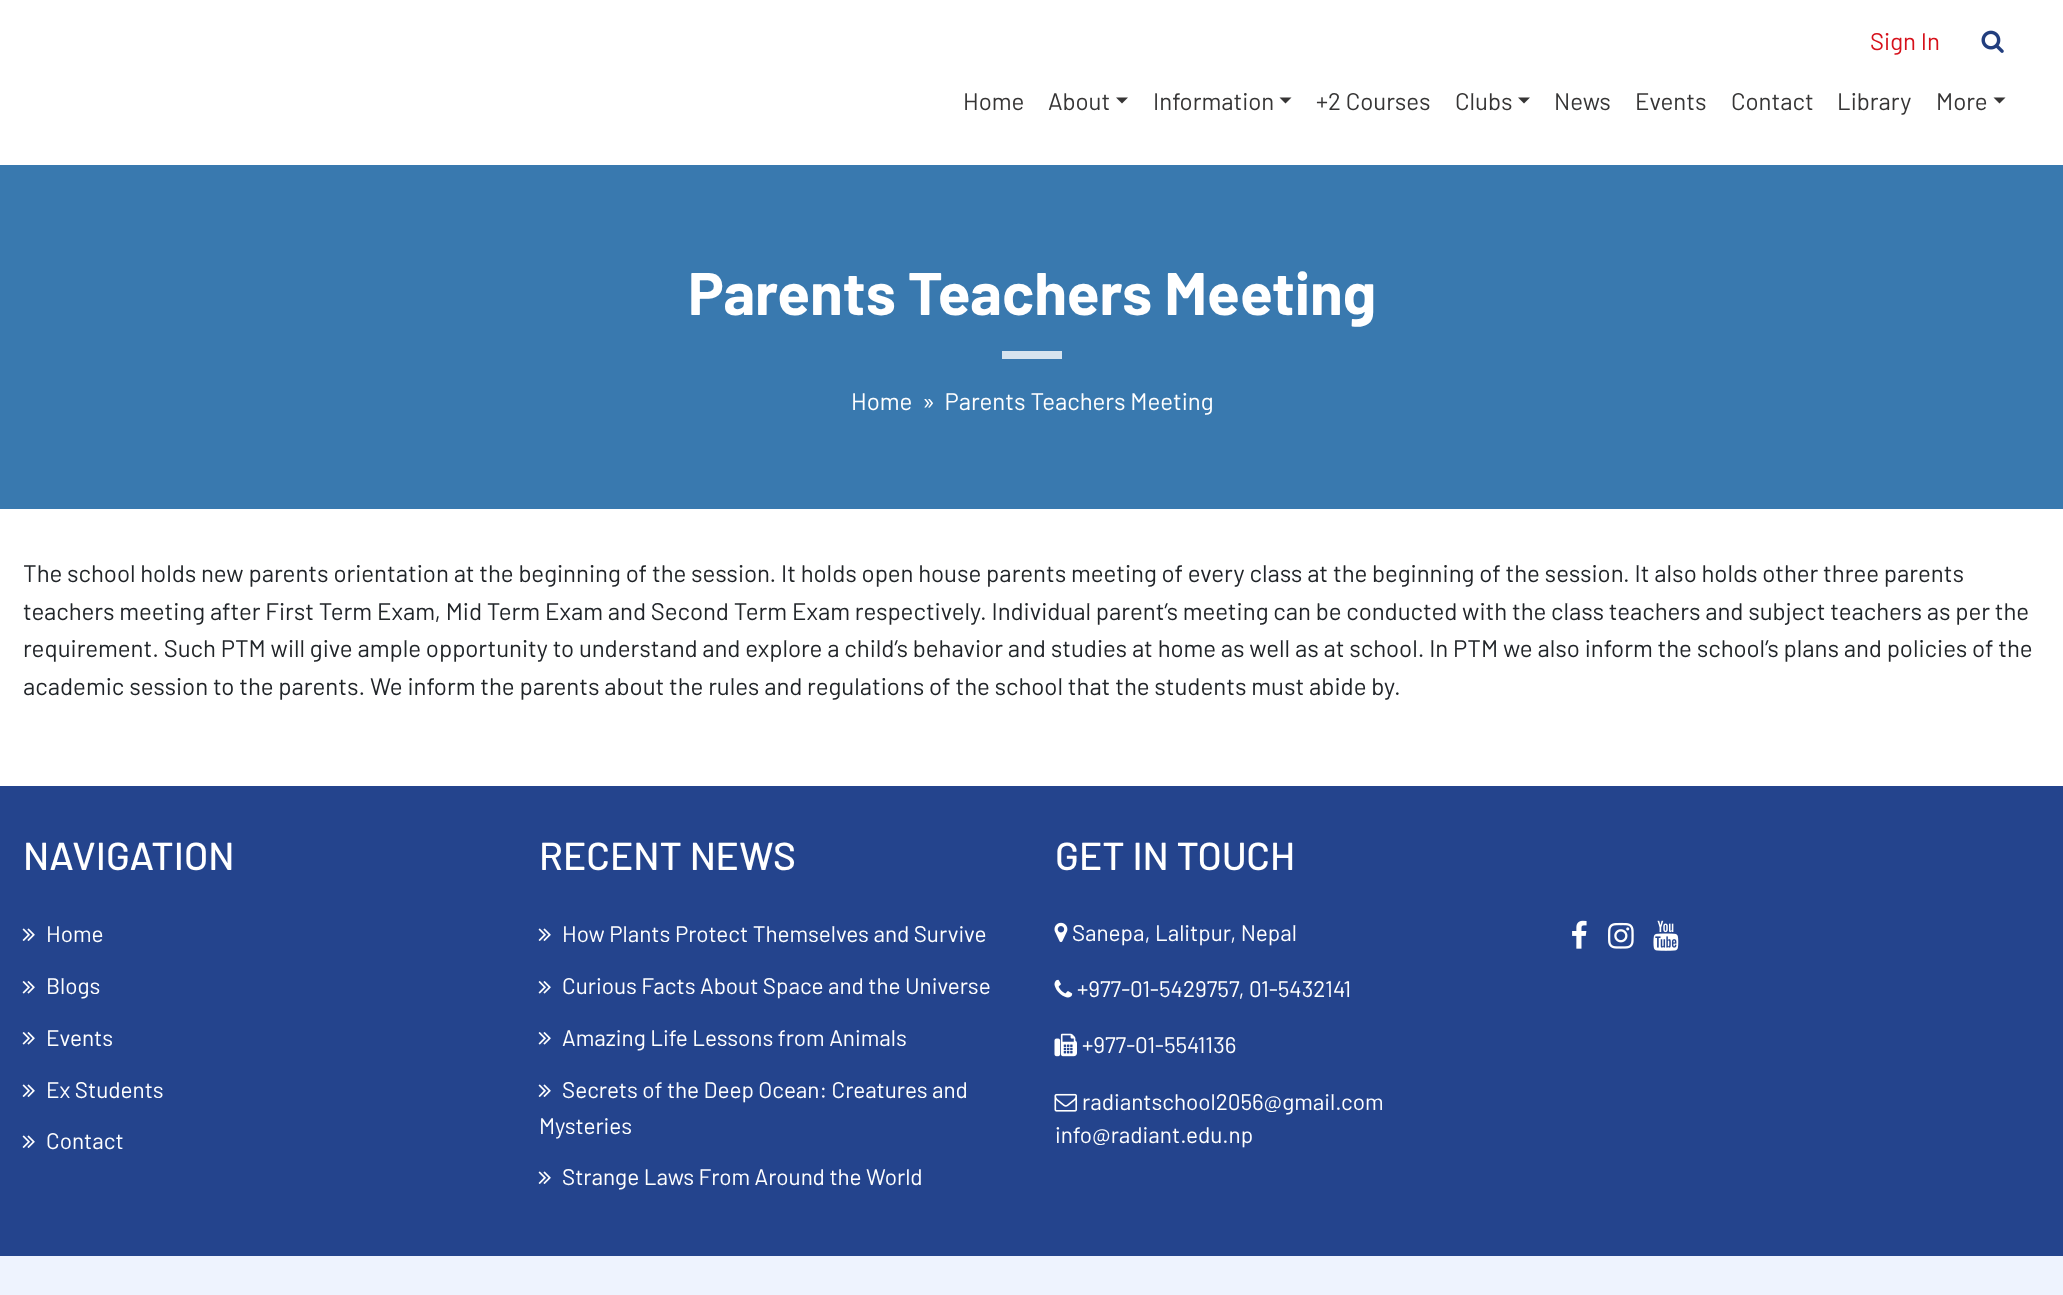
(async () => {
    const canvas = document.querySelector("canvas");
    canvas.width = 2063;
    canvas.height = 1295;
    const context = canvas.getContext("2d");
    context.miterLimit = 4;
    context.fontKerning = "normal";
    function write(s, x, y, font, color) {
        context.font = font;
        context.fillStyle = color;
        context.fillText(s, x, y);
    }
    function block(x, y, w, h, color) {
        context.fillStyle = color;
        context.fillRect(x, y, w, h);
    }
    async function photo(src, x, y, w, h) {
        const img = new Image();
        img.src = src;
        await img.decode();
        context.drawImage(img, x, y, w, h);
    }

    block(0, 0, 2063, 1295, "rgb(255, 255, 255)");
    write("Sign In", 1870, 50, "24px Barlow", "rgb(214, 17, 27)");
    await photo("media/1.png", 1981, 30, 23, 23);
    write("Home", 963, 110, "24px Barlow", "rgb(54, 53, 53)");
    write("About", 1048, 110, "24px Barlow", "rgb(54, 53, 53)");
    context.beginPath();
    context.moveTo(1116, 97.5);
    context.lineTo(1128, 97.5);
    context.lineTo(1122, 103.5);
    context.closePath();
    context.fill();
    write("Information", 1153, 110, "24px Barlow", "rgb(54, 53, 53)");
    context.beginPath();
    context.moveTo(1279.5, 97.5);
    context.lineTo(1291.5, 97.5);
    context.lineTo(1285.5, 103.5);
    context.closePath();
    context.fill();
    write("+2 Courses", 1316, 110, "24px Barlow", "rgb(54, 53, 53)");
    write("Clubs", 1455, 110, "24px Barlow", "rgb(54, 53, 53)");
    context.beginPath();
    context.moveTo(1518, 97.5);
    context.lineTo(1530, 97.5);
    context.lineTo(1524, 103.5);
    context.closePath();
    context.fill();
    write("News", 1554, 110, "24px Barlow", "rgb(54, 53, 53)");
    write("Events", 1635, 110, "24px Barlow", "rgb(54, 53, 53)");
    write("Contact", 1731, 110, "24px Barlow", "rgb(54, 53, 53)");
    write("Library", 1837, 110, "24px Barlow", "rgb(54, 53, 53)");
    write("More", 1936, 110, "24px Barlow", "rgb(54, 53, 53)");
    context.beginPath();
    context.moveTo(1993.5, 97.5);
    context.lineTo(2005.5, 97.5);
    context.lineTo(1999.5, 103.5);
    context.closePath();
    context.fill();
    block(0, 165, 2063, 344, "rgb(57, 121, 175)");
    write("Parents Teachers Meeting", 688, 315, "bold 60px Barlow", "rgb(255, 255, 255)");
    block(1002, 351, 60, 8, "rgb(215, 228, 239)");
    write("Home", 851, 410, "24px Barlow", "rgb(255, 255, 255)");
    write("»  Parents Teachers Meeting", 922, 410, "24px Barlow", "rgb(255, 255, 255)");
    write("The school holds new parents orientation at the beginning of the session. It holds open house parents meeting of every class at the beginning of the session. It also holds other three parents", 23, 582, "24px Barlow", "rgb(33, 37, 41)");
    write("teachers meeting after First Term Exam, Mid Term Exam and Second Term Exam respectively. Individual parent’s meeting can be conducted with the class teachers and subject teachers as per the", 23, 620, "24px Barlow", "rgb(33, 37, 41)");
    write("requirement. Such PTM will give ample opportunity to understand and explore a child’s behavior and studies at home as well as at school. In PTM we also inform the school’s plans and policies of the", 23, 657, "24px Barlow", "rgb(33, 37, 41)");
    write("academic session to the parents. We inform the parents about the rules and regulations of the school that the students must abide by.", 23, 695, "24px Barlow", "rgb(33, 37, 41)");
    block(0, 786, 2063, 470, "rgb(36, 68, 141)");
    write("NAVIGATION", 23, 870, "500 39px Barlow", "rgb(255, 255, 255)");
    await photo("media/2.png", 22, 928, 13, 13);
    write("Home", 46, 942, "22.5px Barlow", "rgb(255, 255, 255)");
    await photo("media/3.png", 22, 981, 13, 13);
    write("Blogs", 46, 994, "22.5px Barlow", "rgb(255, 255, 255)");
    await photo("media/3.png", 22, 1032, 13, 13);
    write("Events", 46, 1046, "22.5px Barlow", "rgb(255, 255, 255)");
    await photo("media/2.png", 22, 1084, 13, 13);
    write("Ex Students", 46, 1098, "22.5px Barlow", "rgb(255, 255, 255)");
    await photo("media/2.png", 22, 1135, 13, 13);
    write("Contact", 46, 1149, "22.5px Barlow", "rgb(255, 255, 255)");
    write("RECENT NEWS", 539, 870, "500 39px Barlow", "rgb(255, 255, 255)");
    await photo("media/2.png", 538, 928, 13, 13);
    write("How Plants Protect Themselves and Survive", 562, 942, "22.5px Barlow", "rgb(255, 255, 255)");
    await photo("media/3.png", 538, 981, 13, 13);
    write("Curious Facts About Space and the Universe", 562, 994, "22.5px Barlow", "rgb(255, 255, 255)");
    await photo("media/3.png", 538, 1032, 13, 13);
    write("Amazing Life Lessons from Animals", 562, 1046, "22.5px Barlow", "rgb(255, 255, 255)");
    await photo("media/2.png", 538, 1084, 13, 13);
    write("Secrets of the Deep Ocean: Creatures and", 562, 1098, "22.5px Barlow", "rgb(255, 255, 255)");
    write("Mysteries", 539, 1134, "22.5px Barlow", "rgb(255, 255, 255)");
    await photo("media/2.png", 538, 1171, 13, 13);
    write("Strange Laws From Around the World", 562, 1185, "22.5px Barlow", "rgb(255, 255, 255)");
    write("GET IN TOUCH", 1055, 870, "500 39px Barlow", "rgb(255, 255, 255)");
    await photo("media/4.png", 1054, 922, 14, 21);
    write("Sanepa, Lalitpur, Nepal", 1072, 941, "22.5px Barlow", "rgb(255, 255, 255)");
    await photo("media/5.png", 1054, 979, 19, 19);
    write("+977-01-5429757, 01-5432141", 1077, 997, "22.5px Barlow", "rgb(255, 255, 255)");
    await photo("media/6.png", 1054, 1033, 23, 24);
    write("+977-01-5541136", 1082, 1053, "22.5px Barlow", "rgb(255, 255, 255)");
    await photo("media/7.png", 1054, 1093, 23, 19);
    write("radiantschool2056@gmail.com", 1082, 1110, "22.5px Barlow", "rgb(255, 255, 255)");
    write("info@radiant.edu.np", 1055, 1143, "22.5px Barlow", "rgb(255, 255, 255)");
    await photo("media/8.png", 1572, 920, 15, 29);
    await photo("media/9.png", 1608, 922, 26, 27);
    await photo("media/10.png", 1653, 920, 26, 31);
    block(0, 1256, 2063, 39, "rgb(238, 243, 254)");
})();
